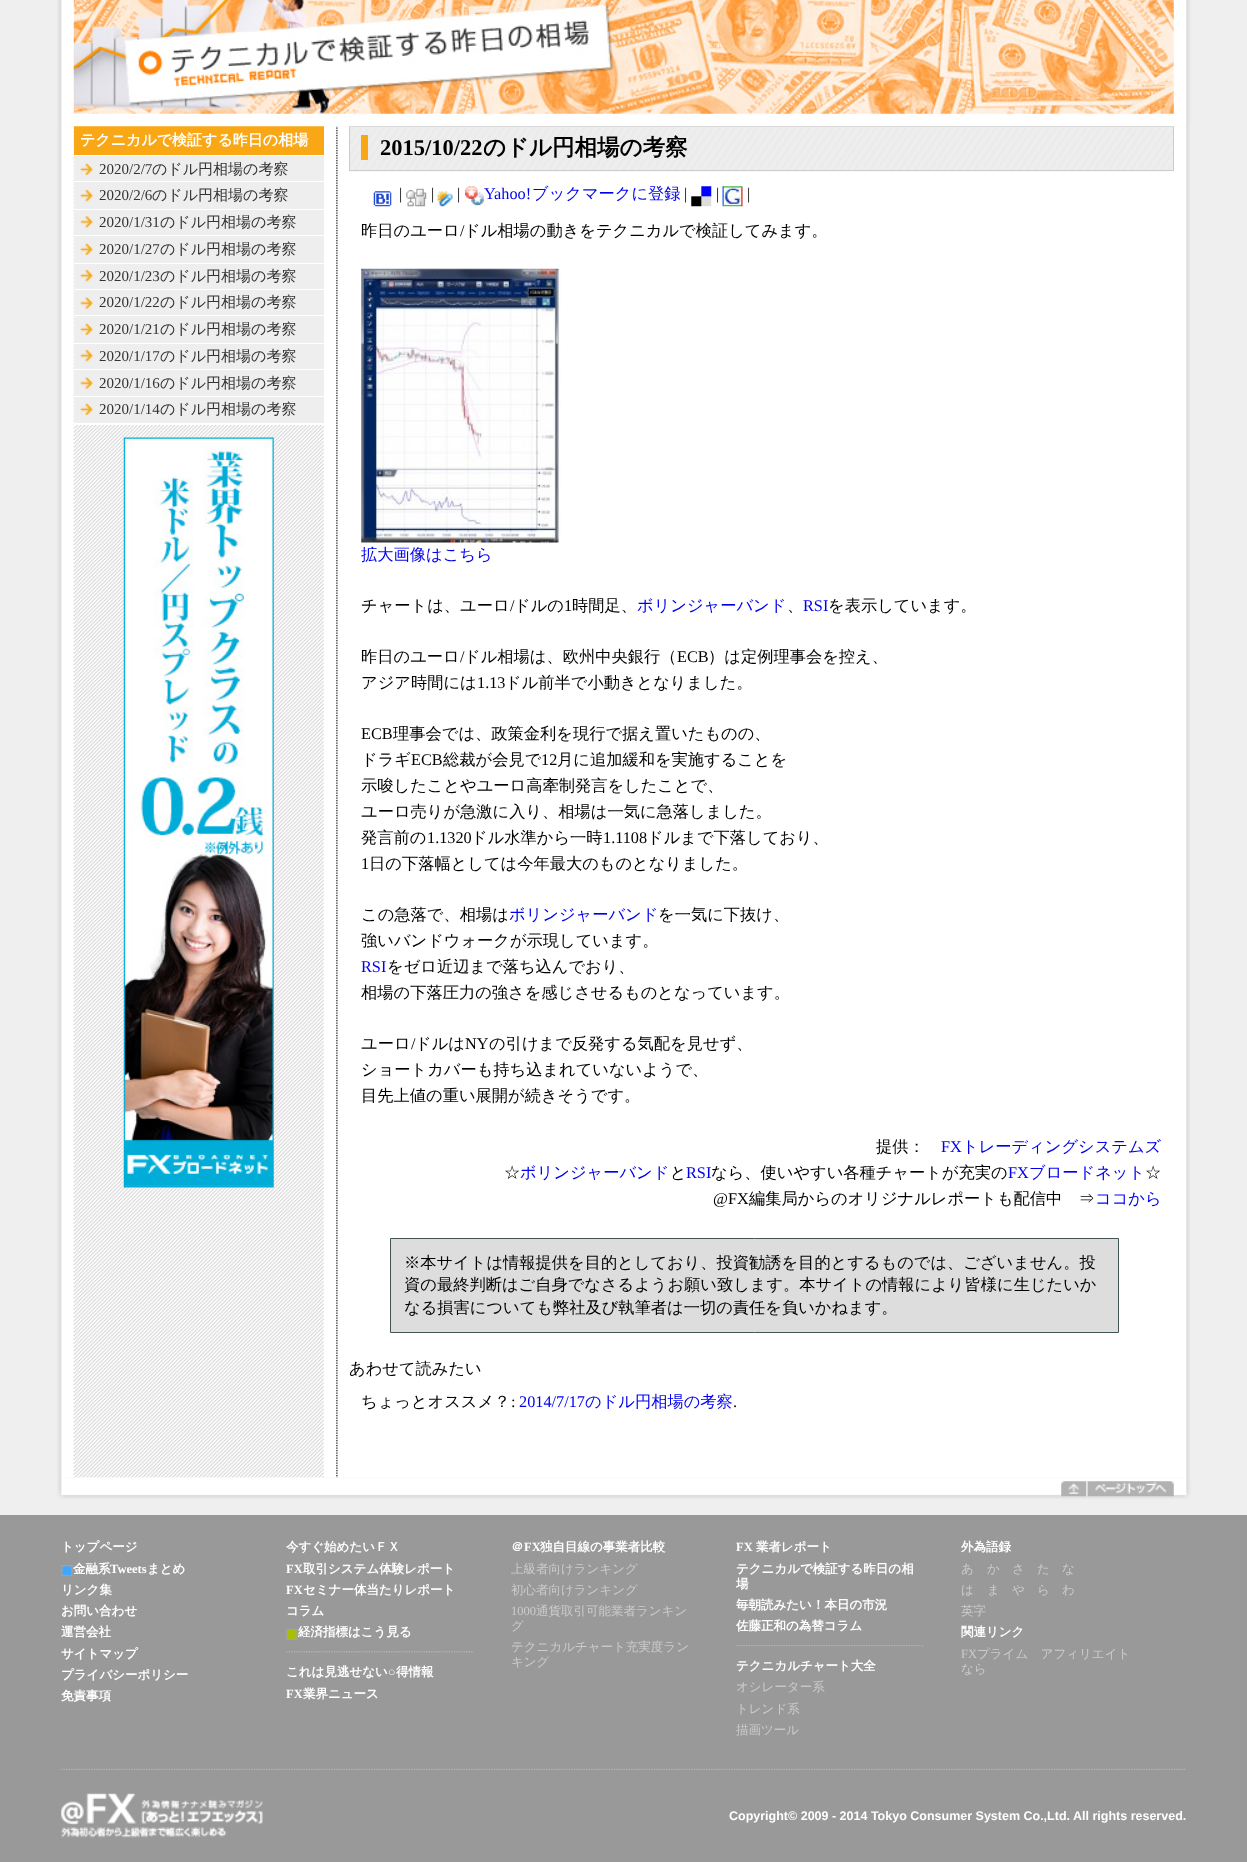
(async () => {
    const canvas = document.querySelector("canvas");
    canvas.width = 1247;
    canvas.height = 1862;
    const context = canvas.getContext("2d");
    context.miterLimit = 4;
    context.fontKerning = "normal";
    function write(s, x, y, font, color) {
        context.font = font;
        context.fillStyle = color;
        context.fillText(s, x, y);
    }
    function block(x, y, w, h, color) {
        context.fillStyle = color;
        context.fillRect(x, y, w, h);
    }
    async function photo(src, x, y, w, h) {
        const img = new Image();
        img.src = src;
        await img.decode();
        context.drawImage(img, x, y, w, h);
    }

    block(0, 0, 1247, 1862, "rgb(153, 153, 153)");
    block(0, 0, 1247, 1515, "rgb(239, 239, 239)");
    await photo("media/3.png", 57, 126, 1133, 1352);
    block(74, 126, 250, 29, "rgb(250, 167, 22)");
    await photo("media/10.png", 349, 127, 825, 45);
    context.strokeStyle = "rgb(204, 204, 204)";
    context.strokeRect(349.5, 126.5, 824, 44);
    await photo("media/1.png", 57, 0, 1134, 127);
    await photo("media/2.png", 73, 0, 1101, 114);
    block(74, 155, 250, 270, "rgb(255, 255, 255)");
    write("テクニカルで検証する昨日の相場", 80, 145, "bold 15px WenQuanYi Zen Hei", "rgb(255, 255, 255)");
    block(74, 156, 250, 53, "rgb(238, 238, 238)");
    await photo("media/4.png", 80, 163, 13, 12);
    block(74, 181, 250, 1, "rgb(255, 255, 255)");
    write("2020/2/7", 99, 174, "15px Liberation Serif", "rgb(51, 51, 51)");
    write("のドル円相場の考察", 152, 174, "500 15px WenQuanYi Zen Hei", "rgb(51, 51, 51)");
    await photo("media/5.png", 80, 190, 13, 12);
    write("2020/2/6", 99, 200, "15px Liberation Serif", "rgb(51, 51, 51)");
    write("のドル円相場の考察", 152, 200, "500 15px WenQuanYi Zen Hei", "rgb(51, 51, 51)");
    block(74, 210, 250, 25, "rgb(238, 238, 238)");
    await photo("media/6.png", 80, 216, 13, 12);
    write("2020/1/31", 99, 227, "15px Liberation Serif", "rgb(51, 51, 51)");
    write("のドル円相場の考察", 160, 227, "500 15px WenQuanYi Zen Hei", "rgb(51, 51, 51)");
    block(74, 236, 250, 27, "rgb(238, 238, 238)");
    await photo("media/4.png", 80, 243, 13, 12);
    write("2020/1/27", 99, 254, "15px Liberation Serif", "rgb(51, 51, 51)");
    write("のドル円相場の考察", 160, 254, "500 15px WenQuanYi Zen Hei", "rgb(51, 51, 51)");
    block(74, 264, 250, 25, "rgb(238, 238, 238)");
    await photo("media/5.png", 80, 270, 13, 12);
    write("2020/1/23", 99, 281, "15px Liberation Serif", "rgb(51, 51, 51)");
    write("のドル円相場の考察", 160, 281, "500 15px WenQuanYi Zen Hei", "rgb(51, 51, 51)");
    block(74, 290, 250, 25, "rgb(238, 238, 238)");
    await photo("media/7.png", 80, 297, 13, 12);
    write("2020/1/22", 99, 307, "15px Liberation Serif", "rgb(51, 51, 51)");
    write("のドル円相場の考察", 160, 307, "500 15px WenQuanYi Zen Hei", "rgb(51, 51, 51)");
    block(74, 316, 250, 27, "rgb(238, 238, 238)");
    await photo("media/4.png", 80, 323, 13, 12);
    write("2020/1/21", 99, 334, "15px Liberation Serif", "rgb(51, 51, 51)");
    write("のドル円相場の考察", 160, 334, "500 15px WenQuanYi Zen Hei", "rgb(51, 51, 51)");
    block(74, 344, 250, 25, "rgb(238, 238, 238)");
    await photo("media/8.png", 80, 350, 13, 12);
    write("2020/1/17", 99, 361, "15px Liberation Serif", "rgb(51, 51, 51)");
    write("のドル円相場の考察", 160, 361, "500 15px WenQuanYi Zen Hei", "rgb(51, 51, 51)");
    block(74, 370, 250, 53, "rgb(238, 238, 238)");
    await photo("media/7.png", 80, 377, 13, 12);
    block(74, 396, 250, 1, "rgb(255, 255, 255)");
    write("2020/1/16", 99, 388, "15px Liberation Serif", "rgb(51, 51, 51)");
    write("のドル円相場の考察", 160, 388, "500 15px WenQuanYi Zen Hei", "rgb(51, 51, 51)");
    await photo("media/4.png", 80, 403, 13, 12);
    write("2020/1/14", 99, 414, "15px Liberation Serif", "rgb(51, 51, 51)");
    write("のドル円相場の考察", 160, 414, "500 15px WenQuanYi Zen Hei", "rgb(51, 51, 51)");
    await photo("media/9.png", 123, 437, 151, 751);
    write("2015/10/22", 380, 155, "bold 22.5px Liberation Serif", "rgb(0, 0, 0)");
    block(361, 135, 7, 25, "rgb(250, 167, 22)");
    write("のドル円相場の考察", 483, 155, "bold 22.5px WenQuanYi Zen Hei", "rgb(0, 0, 0)");
    await photo("media/11.png", 373, 191, 19, 16);
    write("|", 399, 199, "16.25px Liberation Serif", "rgb(0, 0, 0)");
    await photo("media/12.png", 406, 188, 21, 19);
    write("|", 431, 199, "16.25px Liberation Serif", "rgb(0, 0, 0)");
    await photo("media/13.png", 437, 191, 16, 16);
    write("|", 457, 199, "16.25px Liberation Serif", "rgb(0, 0, 0)");
    await photo("media/14.png", 465, 186, 19, 20);
    write("Yahoo!", 484, 199, "16.25px Liberation Serif", "rgb(0, 0, 238)");
    write("ブックマークに登録", 532, 199, "500 16.25px WenQuanYi Zen Hei", "rgb(0, 0, 238)");
    write("|", 684, 199, "16.25px Liberation Serif", "rgb(0, 0, 0)");
    await photo("media/15.png", 691, 186, 21, 21);
    write("|", 716, 199, "16.25px Liberation Serif", "rgb(0, 0, 0)");
    await photo("media/16.png", 722, 186, 21, 21);
    write("|", 747, 199, "16.25px Liberation Serif", "rgb(0, 0, 0)");
    write("昨日のユーロ", 361, 236, "500 16.25px WenQuanYi Zen Hei", "rgb(0, 0, 0)");
    write("/", 460, 236, "16.25px Liberation Serif", "rgb(0, 0, 0)");
    write("ドル相場の動きをテクニカルで検証してみます。", 464, 236, "500 16.25px WenQuanYi Zen Hei", "rgb(0, 0, 0)");
    await photo("media/17.png", 361, 268, 200, 275);
    write("拡大画像はこちら", 361, 560, "500 16.25px WenQuanYi Zen Hei", "rgb(0, 0, 238)");
    write("チャートは、ユーロ", 361, 611, "500 16.25px WenQuanYi Zen Hei", "rgb(0, 0, 0)");
    write("/", 510, 611, "16.25px Liberation Serif", "rgb(0, 0, 0)");
    write("ドルの", 514, 611, "500 16.25px WenQuanYi Zen Hei", "rgb(0, 0, 0)");
    write("1", 564, 611, "16.25px Liberation Serif", "rgb(0, 0, 0)");
    write("時間足、", 572, 611, "500 16.25px WenQuanYi Zen Hei", "rgb(0, 0, 0)");
    write("ボリンジャーバンド", 637, 611, "500 16.25px WenQuanYi Zen Hei", "rgb(0, 0, 238)");
    write("、", 787, 611, "500 16.25px WenQuanYi Zen Hei", "rgb(0, 0, 0)");
    write("RSI", 803, 611, "16.25px Liberation Serif", "rgb(0, 0, 238)");
    write("を表示しています。", 828, 611, "500 16.25px WenQuanYi Zen Hei", "rgb(0, 0, 0)");
    write("昨日のユーロ", 361, 662, "500 16.25px WenQuanYi Zen Hei", "rgb(0, 0, 0)");
    write("/", 460, 662, "16.25px Liberation Serif", "rgb(0, 0, 0)");
    write("ドル相場は、欧州中央銀行（", 464, 662, "500 16.25px WenQuanYi Zen Hei", "rgb(0, 0, 0)");
    write("ECB", 677, 662, "16.25px Liberation Serif", "rgb(0, 0, 0)");
    write("）は定例理事会を控え、", 708, 662, "500 16.25px WenQuanYi Zen Hei", "rgb(0, 0, 0)");
    write("アジア時間には", 361, 688, "500 16.25px WenQuanYi Zen Hei", "rgb(0, 0, 0)");
    write("1.13", 477, 688, "16.25px Liberation Serif", "rgb(0, 0, 0)");
    write("ドル前半で小動きとなりました。", 505, 688, "500 16.25px WenQuanYi Zen Hei", "rgb(0, 0, 0)");
    write("ECB", 361, 739, "16.25px Liberation Serif", "rgb(0, 0, 0)");
    write("理事会では、政策金利を現行で据え置いたものの、", 393, 739, "500 16.25px WenQuanYi Zen Hei", "rgb(0, 0, 0)");
    write("ドラギ", 361, 765, "500 16.25px WenQuanYi Zen Hei", "rgb(0, 0, 0)");
    write("ECB", 411, 765, "16.25px Liberation Serif", "rgb(0, 0, 0)");
    write("総裁が会見で", 443, 765, "500 16.25px WenQuanYi Zen Hei", "rgb(0, 0, 0)");
    write("12", 541, 765, "16.25px Liberation Serif", "rgb(0, 0, 0)");
    write("月に追加緩和を実施することを", 557, 765, "500 16.25px WenQuanYi Zen Hei", "rgb(0, 0, 0)");
    write("示唆したことやユーロ高牽制発言をしたことで、", 361, 791, "500 16.25px WenQuanYi Zen Hei", "rgb(0, 0, 0)");
    write("ユーロ売りが急激に入り、相場は一気に急落しました。", 361, 817, "500 16.25px WenQuanYi Zen Hei", "rgb(0, 0, 0)");
    write("発言前の", 361, 843, "500 16.25px WenQuanYi Zen Hei", "rgb(0, 0, 0)");
    write("1.1320", 427, 843, "16.25px Liberation Serif", "rgb(0, 0, 0)");
    write("ドル水準から一時", 471, 843, "500 16.25px WenQuanYi Zen Hei", "rgb(0, 0, 0)");
    write("1.1108", 603, 843, "16.25px Liberation Serif", "rgb(0, 0, 0)");
    write("ドルまで下落しており、", 647, 843, "500 16.25px WenQuanYi Zen Hei", "rgb(0, 0, 0)");
    write("1", 361, 869, "16.25px Liberation Serif", "rgb(0, 0, 0)");
    write("日の下落幅としては今年最大のものとなりました。", 369, 869, "500 16.25px WenQuanYi Zen Hei", "rgb(0, 0, 0)");
    write("この急落で、相場は", 361, 920, "500 16.25px WenQuanYi Zen Hei", "rgb(0, 0, 0)");
    write("ボリンジャーバンド", 509, 920, "500 16.25px WenQuanYi Zen Hei", "rgb(0, 0, 238)");
    write("を一気に下抜け、", 658, 920, "500 16.25px WenQuanYi Zen Hei", "rgb(0, 0, 0)");
    write("強いバンドウォークが示現しています。", 361, 946, "500 16.25px WenQuanYi Zen Hei", "rgb(0, 0, 0)");
    write("RSI", 361, 972, "16.25px Liberation Serif", "rgb(0, 0, 238)");
    write("をゼロ近辺まで落ち込んでおり、", 387, 972, "500 16.25px WenQuanYi Zen Hei", "rgb(0, 0, 0)");
    write("相場の下落圧力の強さを感じさせるものとなっています。", 361, 998, "500 16.25px WenQuanYi Zen Hei", "rgb(0, 0, 0)");
    write("ユーロ", 361, 1049, "500 16.25px WenQuanYi Zen Hei", "rgb(0, 0, 0)");
    write("/", 411, 1049, "16.25px Liberation Serif", "rgb(0, 0, 0)");
    write("ドルは", 415, 1049, "500 16.25px WenQuanYi Zen Hei", "rgb(0, 0, 0)");
    write("NY", 465, 1049, "16.25px Liberation Serif", "rgb(0, 0, 0)");
    write("の引けまで反発する気配を見せず、", 489, 1049, "500 16.25px WenQuanYi Zen Hei", "rgb(0, 0, 0)");
    write("ショートカバーも持ち込まれていないようで、", 361, 1075, "500 16.25px WenQuanYi Zen Hei", "rgb(0, 0, 0)");
    write("目先上値の重い展開が続きそうです。", 361, 1101, "500 16.25px WenQuanYi Zen Hei", "rgb(0, 0, 0)");
    write("提供：", 876, 1152, "500 16.25px WenQuanYi Zen Hei", "rgb(0, 0, 0)");
    write("FX", 941, 1152, "16.25px Liberation Serif", "rgb(0, 0, 238)");
    write("トレーディングシステムズ", 962, 1152, "500 16.25px WenQuanYi Zen Hei", "rgb(0, 0, 238)");
    write("☆", 504, 1178, "500 16.25px WenQuanYi Zen Hei", "rgb(0, 0, 0)");
    write("ボリンジャーバンド", 520, 1178, "500 16.25px WenQuanYi Zen Hei", "rgb(0, 0, 238)");
    write("と", 670, 1178, "500 16.25px WenQuanYi Zen Hei", "rgb(0, 0, 0)");
    write("RSI", 686, 1178, "16.25px Liberation Serif", "rgb(0, 0, 238)");
    write("なら、使いやすい各種チャートが充実の", 711, 1178, "500 16.25px WenQuanYi Zen Hei", "rgb(0, 0, 0)");
    write("FX", 1008, 1178, "16.25px Liberation Serif", "rgb(0, 0, 238)");
    write("ブロードネット", 1029, 1178, "500 16.25px WenQuanYi Zen Hei", "rgb(0, 0, 238)");
    write("☆", 1145, 1178, "500 16.25px WenQuanYi Zen Hei", "rgb(0, 0, 0)");
    write("@FX", 713, 1204, "16.25px Liberation Serif", "rgb(0, 0, 0)");
    write("編集局からのオリジナルレポートも配信中　⇒", 749, 1204, "500 16.25px WenQuanYi Zen Hei", "rgb(0, 0, 0)");
    write("ココから", 1095, 1204, "500 16.25px WenQuanYi Zen Hei", "rgb(0, 0, 238)");
    context.fillStyle = "rgb(221, 221, 221)";
    context.beginPath();
    context.rect(390.5, 1238.5, 728, 94);
    context.fill();
    context.strokeStyle = "rgb(68, 85, 85)";
    context.stroke();
    write("※本サイトは情報提供を目的としており、投資勧誘を目的とするものでは、ございません。投", 404, 1268, "500 16.25px WenQuanYi Zen Hei", "rgb(0, 0, 0)");
    write("資の最終判断はご自身でなさるようお願い致します。本サイトの情報により皆様に生じたいか", 404, 1290, "500 16.25px WenQuanYi Zen Hei", "rgb(0, 0, 0)");
    write("なる損害についても弊社及び執筆者は一切の責任を負いかねます。", 404, 1313, "500 16.25px WenQuanYi Zen Hei", "rgb(0, 0, 0)");
    write("あわせて読みたい", 349, 1374, "500 16.25px WenQuanYi Zen Hei", "rgb(0, 0, 0)");
    write("ちょっとオススメ？", 361, 1407, "500 16.25px WenQuanYi Zen Hei", "rgb(0, 0, 0)");
    write(":", 511, 1407, "16.25px Liberation Serif", "rgb(0, 0, 0)");
    write("2014/7/17", 519, 1407, "16.25px Liberation Serif", "rgb(0, 0, 238)");
    write("のドル円相場の考察", 585, 1407, "500 16.25px WenQuanYi Zen Hei", "rgb(0, 0, 238)");
    write(".", 733, 1407, "16.25px Liberation Serif", "rgb(0, 0, 0)");
    await photo("media/18.png", 57, 1477, 1134, 22);
    await photo("media/19.png", 1061, 1481, 113, 16);
    write("トップページ", 61, 1551, "bold 12.5px WenQuanYi Zen Hei", "rgb(255, 255, 255)");
    await photo("media/20.png", 61, 1565, 12, 11);
    write("金融系", 73, 1573, "bold 12.5px WenQuanYi Zen Hei", "rgb(255, 255, 255)");
    write("Tweets", 110, 1573, "bold 12.5px Liberation Serif", "rgb(255, 255, 255)");
    write("まとめ", 147, 1573, "bold 12.5px WenQuanYi Zen Hei", "rgb(255, 255, 255)");
    write("リンク集", 61, 1594, "bold 12.5px WenQuanYi Zen Hei", "rgb(255, 255, 255)");
    write("お問い合わせ", 61, 1615, "bold 12.5px WenQuanYi Zen Hei", "rgb(255, 255, 255)");
    write("運営会社", 61, 1636, "bold 12.5px WenQuanYi Zen Hei", "rgb(255, 255, 255)");
    write("サイトマップ", 61, 1658, "bold 12.5px WenQuanYi Zen Hei", "rgb(255, 255, 255)");
    write("プライバシーポリシー", 61, 1679, "bold 12.5px WenQuanYi Zen Hei", "rgb(255, 255, 255)");
    write("免責事項", 61, 1700, "bold 12.5px WenQuanYi Zen Hei", "rgb(255, 255, 255)");
    await photo("media/21.png", 286, 1651, 188, 2);
    write("今すぐ始めたいＦＸ", 286, 1551, "bold 12.5px WenQuanYi Zen Hei", "rgb(255, 255, 255)");
    write("FX", 286, 1573, "bold 12.5px Liberation Serif", "rgb(255, 255, 255)");
    write("取引システム体験レポート", 303, 1573, "bold 12.5px WenQuanYi Zen Hei", "rgb(255, 255, 255)");
    write("FX", 286, 1594, "bold 12.5px Liberation Serif", "rgb(255, 255, 255)");
    write("セミナー体当たりレポート", 303, 1594, "bold 12.5px WenQuanYi Zen Hei", "rgb(255, 255, 255)");
    write("コラム", 286, 1615, "bold 12.5px WenQuanYi Zen Hei", "rgb(255, 255, 255)");
    await photo("media/22.png", 286, 1629, 12, 11);
    write("経済指標はこう見る", 298, 1636, "bold 12.5px WenQuanYi Zen Hei", "rgb(255, 255, 255)");
    write("これは見逃せない", 286, 1676, "bold 12.5px WenQuanYi Zen Hei", "rgb(255, 255, 255)");
    write("○", 388, 1676, "bold 12.5px Liberation Serif", "rgb(255, 255, 255)");
    write("得情報", 396, 1676, "bold 12.5px WenQuanYi Zen Hei", "rgb(255, 255, 255)");
    write("FX", 286, 1698, "bold 12.5px Liberation Serif", "rgb(255, 255, 255)");
    write("業界ニュース", 303, 1698, "bold 12.5px WenQuanYi Zen Hei", "rgb(255, 255, 255)");
    write("＠", 511, 1551, "bold 12.5px WenQuanYi Zen Hei", "rgb(255, 255, 255)");
    write("FX", 524, 1551, "bold 12.5px Liberation Serif", "rgb(255, 255, 255)");
    write("独自目線の事業者比較", 540, 1551, "bold 12.5px WenQuanYi Zen Hei", "rgb(255, 255, 255)");
    write("上級者向けランキング", 511, 1573, "500 12.5px WenQuanYi Zen Hei", "rgb(204, 204, 204)");
    write("初心者向けランキング", 511, 1594, "500 12.5px WenQuanYi Zen Hei", "rgb(204, 204, 204)");
    write("1000", 511, 1615, "12.5px Liberation Serif", "rgb(204, 204, 204)");
    write("通貨取引可能業者ランキン", 536, 1615, "500 12.5px WenQuanYi Zen Hei", "rgb(204, 204, 204)");
    write("グ", 511, 1630, "500 12.5px WenQuanYi Zen Hei", "rgb(204, 204, 204)");
    write("テクニカルチャート充実度ラン", 511, 1651, "500 12.5px WenQuanYi Zen Hei", "rgb(204, 204, 204)");
    write("キング", 511, 1666, "500 12.5px WenQuanYi Zen Hei", "rgb(204, 204, 204)");
    await photo("media/23.png", 736, 1645, 188, 2);
    write("FX", 736, 1551, "bold 12.5px Liberation Serif", "rgb(255, 255, 255)");
    write("業者レポート", 756, 1551, "bold 12.5px WenQuanYi Zen Hei", "rgb(255, 255, 255)");
    write("テクニカルで検証する昨日の相", 736, 1573, "bold 12.5px WenQuanYi Zen Hei", "rgb(255, 255, 255)");
    write("場", 736, 1588, "bold 12.5px WenQuanYi Zen Hei", "rgb(255, 255, 255)");
    write("毎朝読みたい！本日の市況", 736, 1609, "bold 12.5px WenQuanYi Zen Hei", "rgb(255, 255, 255)");
    write("佐藤正和の為替コラム", 736, 1630, "bold 12.5px WenQuanYi Zen Hei", "rgb(255, 255, 255)");
    write("テクニカルチャート大全", 736, 1670, "bold 12.5px WenQuanYi Zen Hei", "rgb(255, 255, 255)");
    write("オシレーター系", 736, 1691, "500 12.5px WenQuanYi Zen Hei", "rgb(204, 204, 204)");
    write("トレンド系", 736, 1713, "500 12.5px WenQuanYi Zen Hei", "rgb(204, 204, 204)");
    write("描画ツール", 736, 1734, "500 12.5px WenQuanYi Zen Hei", "rgb(204, 204, 204)");
    write("外為語録", 961, 1551, "bold 12.5px WenQuanYi Zen Hei", "rgb(255, 255, 255)");
    write("あ", 961, 1573, "500 12.5px WenQuanYi Zen Hei", "rgb(204, 204, 204)");
    write("か", 987, 1573, "500 12.5px WenQuanYi Zen Hei", "rgb(204, 204, 204)");
    write("さ", 1012, 1573, "500 12.5px WenQuanYi Zen Hei", "rgb(204, 204, 204)");
    write("た", 1037, 1573, "500 12.5px WenQuanYi Zen Hei", "rgb(204, 204, 204)");
    write("な", 1062, 1573, "500 12.5px WenQuanYi Zen Hei", "rgb(204, 204, 204)");
    write("は", 961, 1594, "500 12.5px WenQuanYi Zen Hei", "rgb(204, 204, 204)");
    write("ま", 987, 1594, "500 12.5px WenQuanYi Zen Hei", "rgb(204, 204, 204)");
    write("や", 1012, 1594, "500 12.5px WenQuanYi Zen Hei", "rgb(204, 204, 204)");
    write("ら", 1037, 1594, "500 12.5px WenQuanYi Zen Hei", "rgb(204, 204, 204)");
    write("わ", 1062, 1594, "500 12.5px WenQuanYi Zen Hei", "rgb(204, 204, 204)");
    write("英字", 961, 1615, "500 12.5px WenQuanYi Zen Hei", "rgb(204, 204, 204)");
    write("関連リンク", 961, 1636, "bold 12.5px WenQuanYi Zen Hei", "rgb(255, 255, 255)");
    write("FX", 961, 1658, "12.5px Liberation Serif", "rgb(204, 204, 204)");
    write("プライム　アフィリエイト", 977, 1658, "500 12.5px WenQuanYi Zen Hei", "rgb(204, 204, 204)");
    write("なら", 961, 1673, "500 12.5px WenQuanYi Zen Hei", "rgb(204, 204, 204)");
    await photo("media/24.png", 61, 1768, 1126, 2);
    await photo("media/25.png", 61, 1793, 202, 45);
    write("Copyright© 2009 - 2014 Tokyo Consumer System Co.,Ltd. All rights reserved.", 729, 1820, "bold 12.5px Liberation Sans", "rgb(255, 255, 255)");
})();
